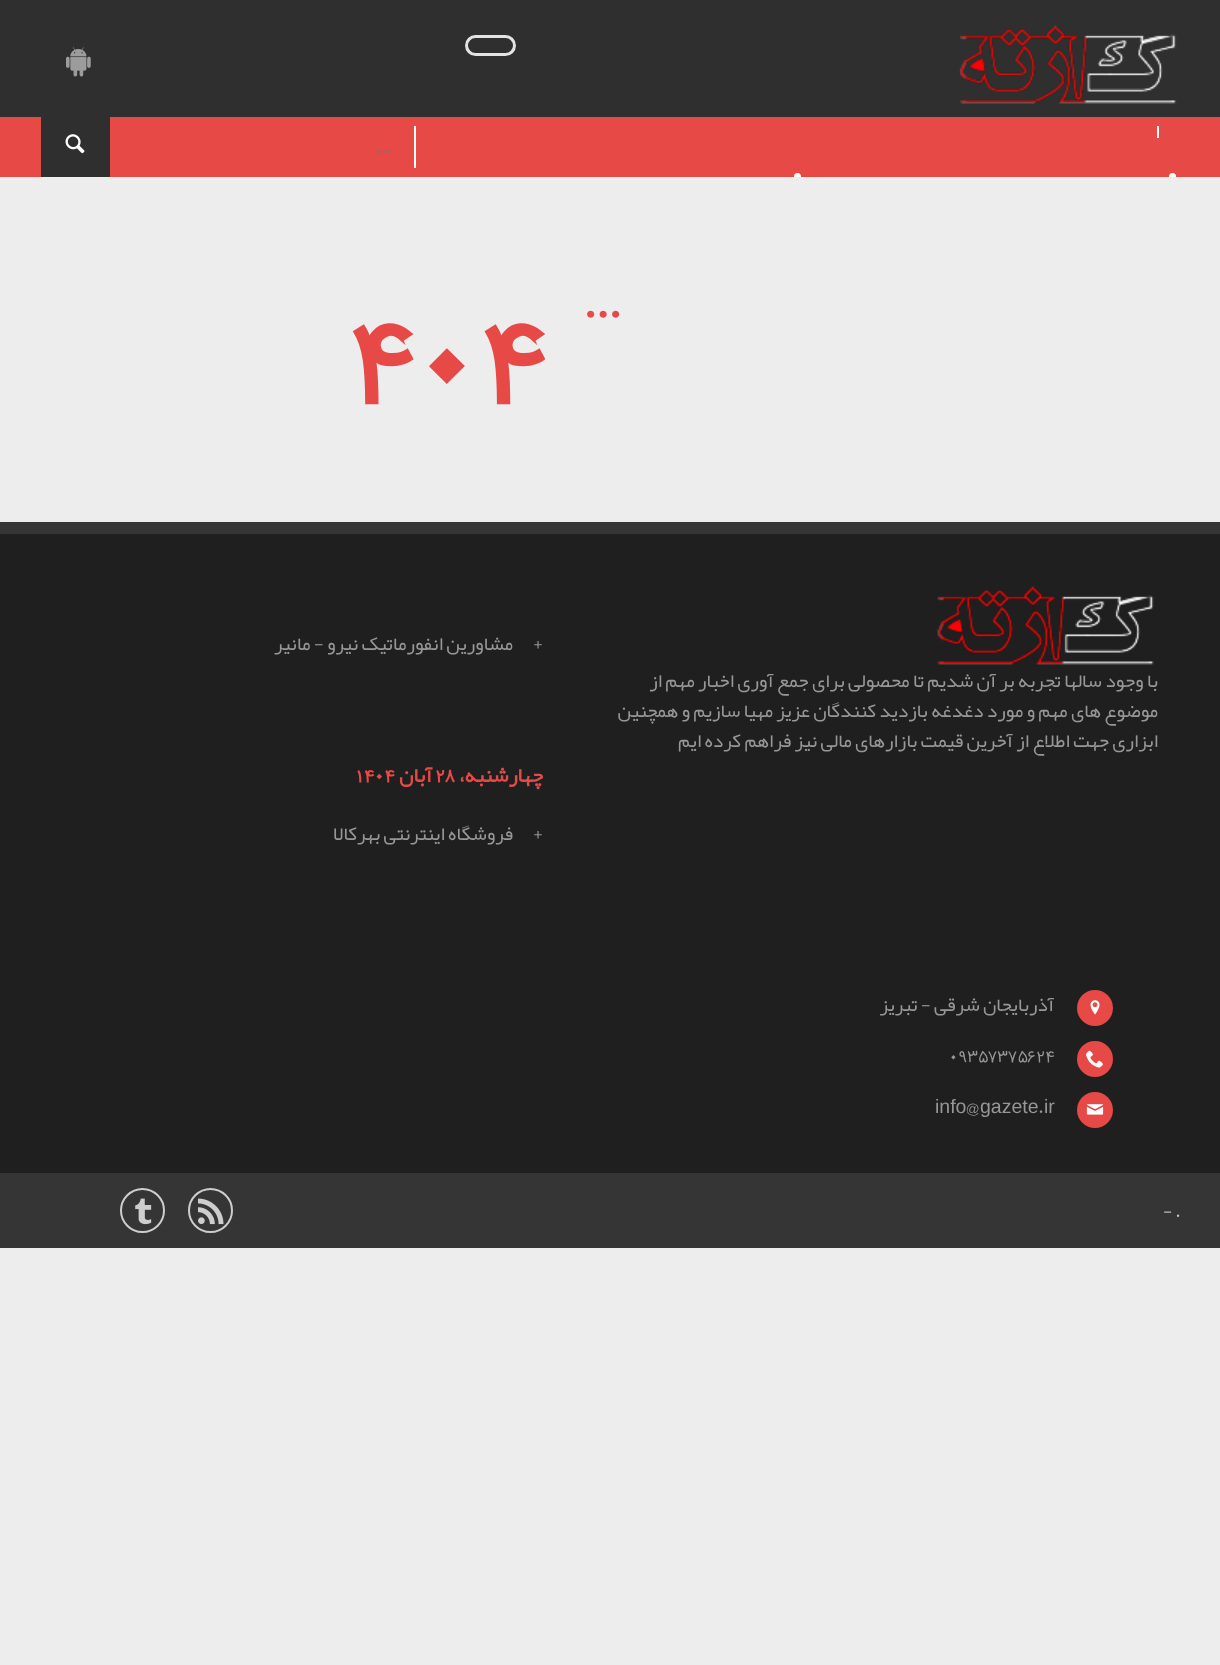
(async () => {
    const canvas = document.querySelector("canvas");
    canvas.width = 1220;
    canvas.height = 1665;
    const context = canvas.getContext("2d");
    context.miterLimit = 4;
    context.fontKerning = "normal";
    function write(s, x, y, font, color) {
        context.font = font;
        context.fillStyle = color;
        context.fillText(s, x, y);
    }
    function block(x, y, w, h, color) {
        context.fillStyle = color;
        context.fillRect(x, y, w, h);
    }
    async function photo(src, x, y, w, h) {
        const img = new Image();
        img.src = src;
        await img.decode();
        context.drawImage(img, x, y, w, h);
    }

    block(0, 0, 1220, 1665, "rgb(237, 237, 237)");
    block(0, 0, 1220, 117, "rgb(47, 47, 47)");
    await photo("media/1.png", 959, 25, 218, 79);
    context.beginPath();
    context.roundRect(466.5, 36.5, 48, 18, 9);
    context.strokeStyle = "rgb(227, 227, 227)";
    context.lineWidth = 3;
    context.stroke();
    await photo("media/2.png", 66, 47, 25, 30);
    block(0, 117, 1220, 60, "rgb(230, 73, 70)");
    block(1157, 126, 2, 12, "rgb(255, 255, 255)");
    context.save();
    context.beginPath();
    context.rect(0, 117, 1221, 60);
    context.clip();
    context.beginPath();
    context.arc(1172.5, 176.5, 3.5, 0, Math.PI * 2);
    context.fill();
    context.beginPath();
    context.arc(797.5, 176.5, 3.5, 0, Math.PI * 2);
    context.fill();
    context.restore();
    block(414, 126, 2, 42, "rgb(255, 255, 255)");
    write("...", 376, 153, "18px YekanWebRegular", "rgb(117, 117, 117)");
    block(41, 117, 69, 60, "rgb(47, 47, 47)");
    await photo("media/3.png", 65, 134, 20, 20);
    write("...", 583, 318, "bold 45px YekanWebRegular", "rgb(230, 73, 70)");
    write("404", 346, 401, "bold 135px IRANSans", "rgb(230, 73, 70)");
    block(0, 534, 1220, 639, "rgb(31, 31, 31)");
    block(0, 522, 1220, 12, "rgb(53, 53, 53)");
    write("+", 533, 650, "19.5px YekanWebRegular", "rgb(151, 151, 151)");
    context.direction = "rtl";
    write("مشاورین انفورماتیک نیرو - مانیر", 513, 650, "19.5px YekanWebRegular", "rgb(151, 151, 151)");
    await photo("media/4.png", 937, 586, 217, 79);
    write("با وجود سالها تجربه بر آن شدیم تا محصولی برای جمع آوری اخبار مهم از", 1158, 687, "19.5px YekanWebRegular", "rgb(151, 151, 151)");
    write("موضوع های مهم و مورد دغدغه بازدید کنندگان عزیز مهیا سازیم و همچنین", 1158, 717, "19.5px YekanWebRegular", "rgb(151, 151, 151)");
    write("ابزاری جهت اطلاع از آخرین قیمت بازارهای مالی نیز فراهم کرده ایم", 1158, 747, "19.5px YekanWebRegular", "rgb(151, 151, 151)");
    write("چهارشنبه،", 543, 782, "bold 21px YekanWebRegular", "rgb(230, 73, 70)");
    context.direction = "ltr";
    write("28", 435, 782, "bold 21px IRANSans", "rgb(230, 73, 70)");
    context.direction = "rtl";
    write("آبان", 432, 782, "bold 21px YekanWebRegular", "rgb(230, 73, 70)");
    context.direction = "ltr";
    write("1404", 355, 782, "bold 21px IRANSans", "rgb(230, 73, 70)");
    write("+", 533, 840, "19.5px YekanWebRegular", "rgb(151, 151, 151)");
    context.direction = "rtl";
    write("فروشگاه اینترنتی بهرکالا", 513, 840, "19.5px YekanWebRegular", "rgb(151, 151, 151)");
    context.fillStyle = "rgb(230, 73, 70)";
    context.beginPath();
    context.arc(1095, 1008, 18, 0, Math.PI * 2);
    context.fill();
    await photo("media/5.png", 1090, 1000, 10, 15);
    write("آذربایجان شرقی - تبریز", 1054, 1011, "19.5px YekanWebRegular", "rgb(151, 151, 151)");
    context.fillStyle = "rgb(230, 73, 70)";
    context.beginPath();
    context.arc(1095, 1059, 18, 0, Math.PI * 2);
    context.fill();
    await photo("media/6.png", 1086, 1050, 17, 18);
    context.direction = "ltr";
    write("09357375624", 949, 1062, "19.5px IRANSans", "rgb(151, 151, 151)");
    context.fillStyle = "rgb(230, 73, 70)";
    context.beginPath();
    context.arc(1095, 1110, 18, 0, Math.PI * 2);
    context.fill();
    await photo("media/7.png", 1086, 1104, 18, 11);
    write("gazete ir", 980, 1113, "19.5px Liberation Sans", "rgb(151, 151, 151)");
    write("@", 966, 1113, "19.5px YekanWebRegular", "rgb(151, 151, 151)");
    write("info", 935, 1113, "19.5px Liberation Sans", "rgb(151, 151, 151)");
    write(".", 1038, 1113, "19.5px YekanWebRegular", "rgb(151, 151, 151)");
    block(0, 1173, 1220, 75, "rgb(53, 53, 53)");
    write("- .", 1163, 1217, "18px YekanWebRegular", "rgb(205, 205, 205)");
    context.beginPath();
    context.arc(210.5, 1210.5, 21.5, 0, Math.PI * 2);
    context.strokeStyle = "rgb(205, 205, 205)";
    context.lineWidth = 2;
    context.stroke();
    await photo("media/8.png", 198, 1198, 26, 27);
    context.beginPath();
    context.arc(142.5, 1210.5, 21.5, 0, Math.PI * 2);
    context.stroke();
    await photo("media/9.png", 135, 1198, 17, 27);
})();
